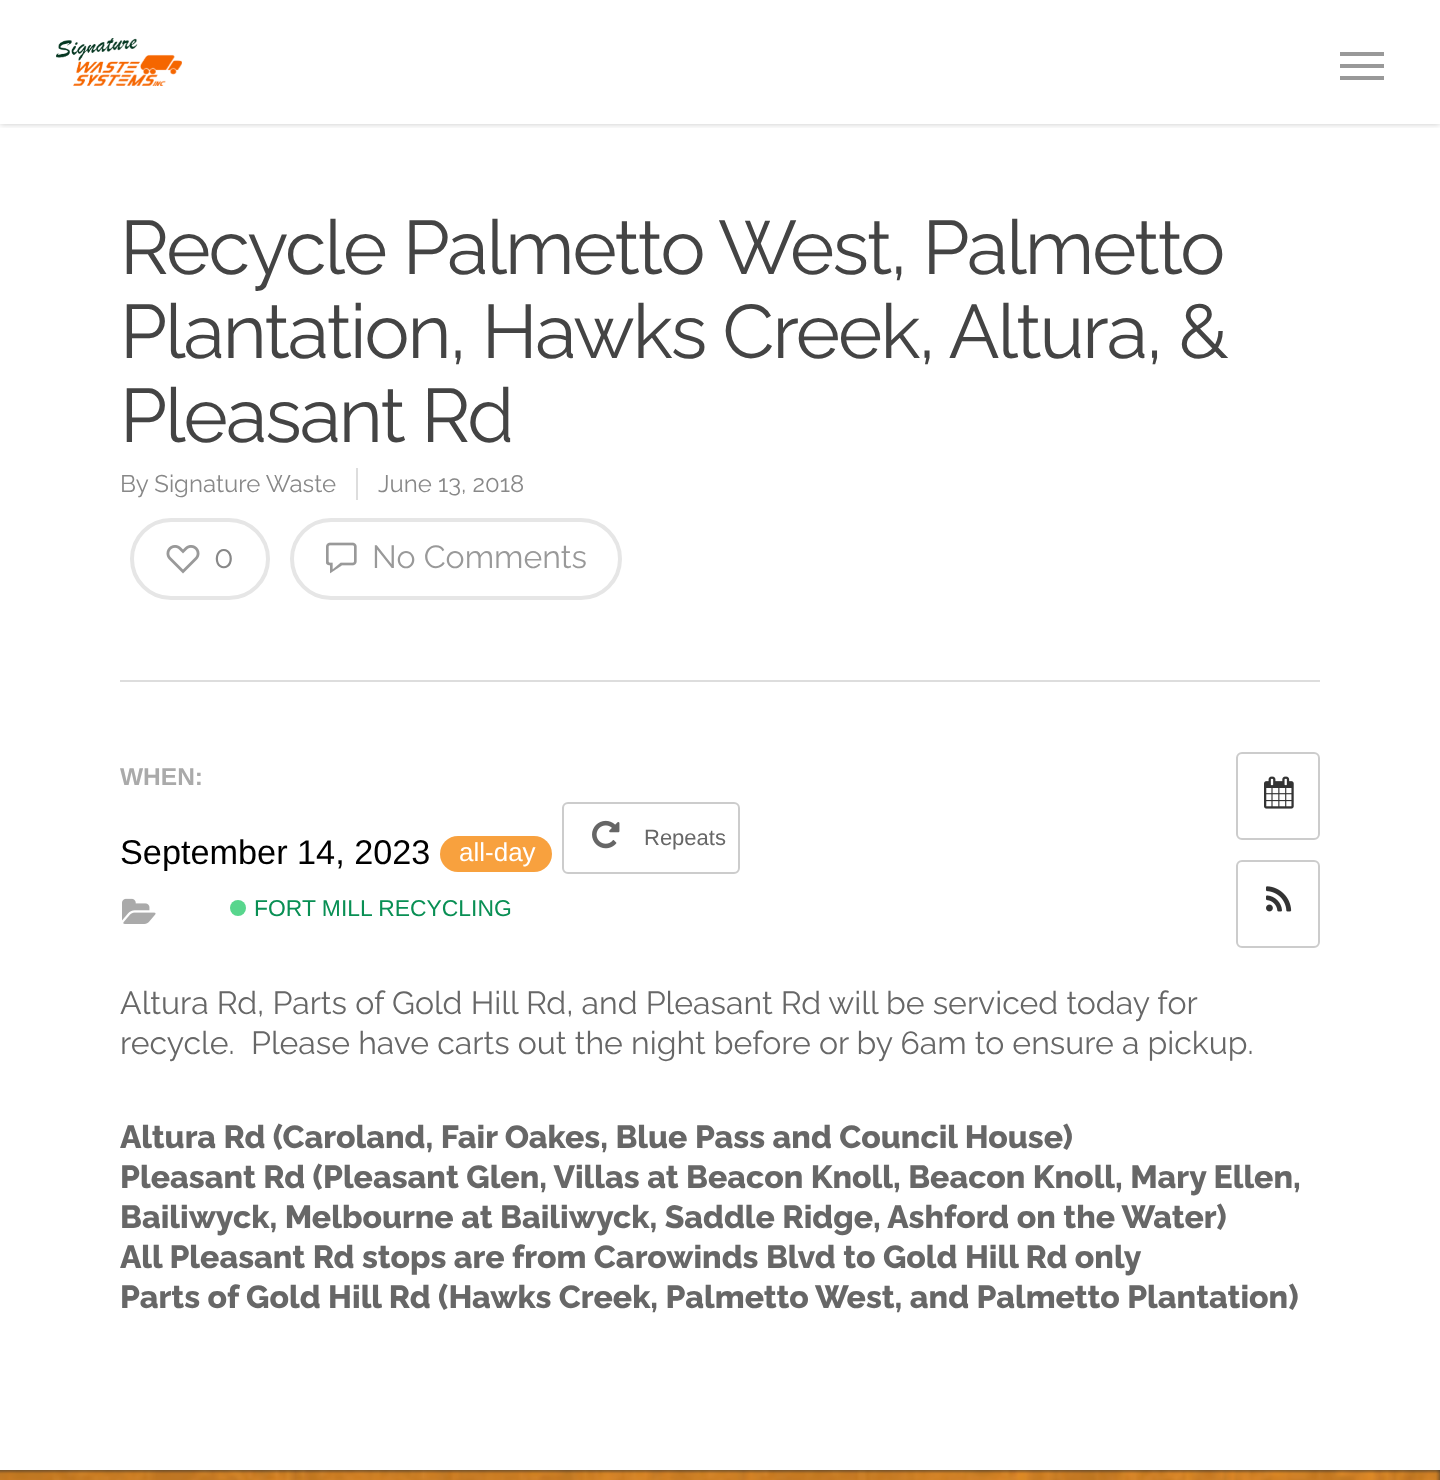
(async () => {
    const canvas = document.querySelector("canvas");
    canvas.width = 1440;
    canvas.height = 1480;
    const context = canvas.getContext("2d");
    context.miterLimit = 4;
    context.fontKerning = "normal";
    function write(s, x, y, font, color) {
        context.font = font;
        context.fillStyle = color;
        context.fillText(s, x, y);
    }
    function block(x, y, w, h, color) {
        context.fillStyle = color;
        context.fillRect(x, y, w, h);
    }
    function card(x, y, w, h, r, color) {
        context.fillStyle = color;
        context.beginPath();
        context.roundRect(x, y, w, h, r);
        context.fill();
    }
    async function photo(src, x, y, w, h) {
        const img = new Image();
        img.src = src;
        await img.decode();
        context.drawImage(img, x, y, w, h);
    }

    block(0, 0, 1440, 1480, "rgb(255, 255, 255)");
    context.save();
    context.beginPath();
    context.rect(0, 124, 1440, 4);
    context.clip();
    context.fillStyle = "rgba(0, 0, 0, 0.22)";
    context.filter = "blur(3px)";
    context.beginPath();
    context.rect(0, 0, 1440, 124);
    context.fill();
    context.filter = "none";
    context.restore();
    await photo("media/1.png", 56, 38, 126, 48);
    block(1340, 52, 44, 4, "rgb(153, 153, 153)");
    block(1340, 76, 44, 4, "rgb(153, 153, 153)");
    block(1340, 64, 44, 4, "rgb(153, 153, 153)");
    block(120, 680, 1200, 2, "rgb(221, 221, 221)");
    context.letterSpacing = "-2px";
    write("Recycle Palmetto West, Palmetto", 120, 274, "75.6px Raleway", "rgb(68, 68, 68)");
    write("Plantation, Hawks Creek, Altura, &", 120, 358, "75.6px Raleway", "rgb(68, 68, 68)");
    write("Pleasant Rd", 120, 442, "75.6px Raleway", "rgb(68, 68, 68)");
    context.letterSpacing = "0px";
    write("By Signature Waste", 120, 492, "24px Raleway", "rgb(136, 136, 136)");
    block(356, 468, 2, 32, "rgb(221, 221, 221)");
    write("June 13, 2018", 378, 492, "24px Raleway", "rgb(136, 136, 136)");
    context.beginPath();
    context.roundRect(132, 520, 136, 78, 39);
    context.strokeStyle = "rgb(230, 230, 230)";
    context.lineWidth = 4;
    context.stroke();
    await photo("media/2.png", 166, 545, 34, 29);
    write("0", 214, 568, "32px Raleway", "rgb(136, 136, 136)");
    context.beginPath();
    context.roundRect(292, 520, 328, 78, 39);
    context.stroke();
    await photo("media/3.png", 326, 542, 31, 32);
    write("No Comments", 372, 568, "32px Raleway", "rgb(153, 153, 153)");
    write("WHEN:", 120, 785, "bold 24.5px Liberation Sans", "rgb(170, 170, 170)");
    write("September 14, 2023", 120, 864, "34.25px Liberation Sans", "rgb(0, 0, 0)");
    card(440, 836, 112, 36, 18, "rgb(248, 161, 62)");
    write("all-day", 459, 861, "26px Liberation Sans", "rgb(255, 255, 255)");
    context.beginPath();
    context.roundRect(563, 803, 176, 70, 5);
    context.strokeStyle = "rgb(204, 204, 204)";
    context.lineWidth = 2;
    context.stroke();
    await photo("media/4.png", 592, 820, 28, 29);
    write("Repeats", 644, 845, "22px Liberation Sans", "rgb(103, 103, 103)");
    await photo("media/5.png", 122, 898, 34, 26);
    context.fillStyle = "rgb(88, 214, 141)";
    context.beginPath();
    context.arc(238, 908, 8, 0, Math.PI * 2);
    context.fill();
    write("FORT MILL RECYCLING", 254, 916, "22.9px Liberation Sans", "rgb(9, 143, 84)");
    context.beginPath();
    context.roundRect(1237, 753, 82, 86, 5);
    context.stroke();
    await photo("media/6.png", 1264, 776, 30, 33);
    context.beginPath();
    context.roundRect(1237, 861, 82, 86, 5);
    context.stroke();
    await photo("media/7.png", 1266, 886, 26, 26);
    write("Altura Rd, Parts of Gold Hill Rd, and Pleasant Rd will be serviced today for", 120, 1014, "32px Raleway", "rgb(103, 103, 103)");
    write("recycle.  Please have carts out the night before or by 6am to ensure a pickup.", 120, 1054, "32px Raleway", "rgb(103, 103, 103)");
    write("Altura Rd (Caroland, Fair Oakes, Blue Pass and Council House)", 120, 1148, "800 32px Raleway", "rgb(103, 103, 103)");
    write("Pleasant Rd (Pleasant Glen, Villas at Beacon Knoll, Beacon Knoll, Mary Ellen,", 120, 1188, "800 32px Raleway", "rgb(103, 103, 103)");
    write("Bailiwyck, Melbourne at Bailiwyck, Saddle Ridge, Ashford on the Water)", 120, 1228, "800 32px Raleway", "rgb(103, 103, 103)");
    write("All Pleasant Rd stops are from Carowinds Blvd to Gold Hill Rd only", 120, 1268, "800 32px Raleway", "rgb(103, 103, 103)");
    write("Parts of Gold Hill Rd (Hawks Creek, Palmetto West, and Palmetto Plantation)", 120, 1308, "800 32px Raleway", "rgb(103, 103, 103)");
    block(0, 1470, 1440, 10, "rgb(49, 50, 51)");
    await photo("media/8.png", 0, 1470, 1440, 10);
    block(0, 1470, 1440, 10, "rgba(49, 50, 51, 0.1)");
})();
